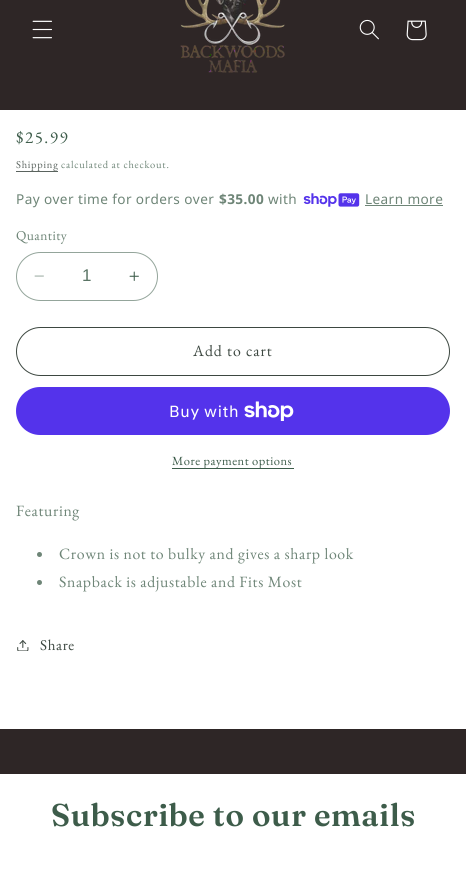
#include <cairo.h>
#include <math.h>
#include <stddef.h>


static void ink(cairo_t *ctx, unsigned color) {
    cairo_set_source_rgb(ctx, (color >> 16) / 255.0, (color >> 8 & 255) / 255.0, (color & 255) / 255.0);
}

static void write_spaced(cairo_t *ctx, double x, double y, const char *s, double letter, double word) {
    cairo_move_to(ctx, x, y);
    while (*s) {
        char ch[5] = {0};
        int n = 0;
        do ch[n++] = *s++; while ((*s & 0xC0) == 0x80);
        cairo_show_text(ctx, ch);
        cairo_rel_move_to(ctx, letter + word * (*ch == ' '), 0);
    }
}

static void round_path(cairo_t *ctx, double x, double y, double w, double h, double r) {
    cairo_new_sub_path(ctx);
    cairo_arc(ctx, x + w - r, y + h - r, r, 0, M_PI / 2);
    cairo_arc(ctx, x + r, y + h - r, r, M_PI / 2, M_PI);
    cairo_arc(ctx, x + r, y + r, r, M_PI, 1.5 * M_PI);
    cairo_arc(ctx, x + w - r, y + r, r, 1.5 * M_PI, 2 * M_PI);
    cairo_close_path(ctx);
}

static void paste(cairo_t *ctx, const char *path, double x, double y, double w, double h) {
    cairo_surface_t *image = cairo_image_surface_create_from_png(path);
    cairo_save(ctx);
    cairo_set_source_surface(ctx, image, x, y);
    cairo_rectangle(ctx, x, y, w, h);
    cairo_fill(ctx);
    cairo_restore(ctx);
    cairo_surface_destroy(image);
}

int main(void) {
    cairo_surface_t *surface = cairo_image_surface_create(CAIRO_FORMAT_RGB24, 466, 896);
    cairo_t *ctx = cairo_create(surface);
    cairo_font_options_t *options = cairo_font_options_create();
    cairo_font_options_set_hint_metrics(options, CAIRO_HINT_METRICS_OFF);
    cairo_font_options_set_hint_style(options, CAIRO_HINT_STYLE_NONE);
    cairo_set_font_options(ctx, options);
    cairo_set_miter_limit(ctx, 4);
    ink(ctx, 0x2E2626);
    cairo_paint(ctx);
    paste(ctx, "media/1.png", 32, 20, 20, 19);
    paste(ctx, "media/2.png", 180, 0, 105, 73);
    paste(ctx, "media/3.png", 359, 19, 20, 21);
    paste(ctx, "media/4.png", 406, 20, 21, 21);
    ink(ctx, 0xFFFFFF);
    cairo_rectangle(ctx, 0, 110, 466, 619);
    cairo_fill(ctx);
    cairo_select_font_face(ctx, "EB Garamond", CAIRO_FONT_SLANT_NORMAL, CAIRO_FONT_WEIGHT_NORMAL);
    cairo_set_font_size(ctx, 17);
    ink(ctx, 0x3D5C4A);
    write_spaced(ctx, 16, 143, "$25.99", 1.5, 0);
    ink(ctx, 0x5A635E);
    cairo_rectangle(ctx, 16, 171, 42, 1);
    cairo_fill(ctx);
    cairo_set_font_size(ctx, 10.5);
    write_spaced(ctx, 16, 168, "Shipping", 0.75, 0);
    ink(ctx, 0x6E8577);
    write_spaced(ctx, 61, 168, "calculated at checkout.", 0.75, 0);
    cairo_select_font_face(ctx, "Noto Sans", CAIRO_FONT_SLANT_NORMAL, CAIRO_FONT_WEIGHT_NORMAL);
    cairo_set_font_size(ctx, 13.6);
    write_spaced(ctx, 16, 204, "Pay over time for orders over", 0.4, 0);
    cairo_select_font_face(ctx, "Noto Sans", CAIRO_FONT_SLANT_NORMAL, CAIRO_FONT_WEIGHT_BOLD);
    write_spaced(ctx, 219, 204, "$35.00", 0.4, 0);
    cairo_select_font_face(ctx, "Noto Sans", CAIRO_FONT_SLANT_NORMAL, CAIRO_FONT_WEIGHT_NORMAL);
    write_spaced(ctx, 268, 204, "with", 0.4, 0);
    paste(ctx, "media/5.png", 303, 193, 57, 14);
    write_spaced(ctx, 365, 204, "Learn more", 0.4, 0);
    cairo_rectangle(ctx, 365, 205, 78, 1);
    cairo_fill(ctx);
    cairo_select_font_face(ctx, "EB Garamond", CAIRO_FONT_SLANT_NORMAL, CAIRO_FONT_WEIGHT_NORMAL);
    write_spaced(ctx, 16, 240, "Quantity", 0.4, 0);
    paste(ctx, "media/6.png", 34, 275, 10, 2);
    paste(ctx, "media/7.png", 129, 271, 10, 10);
    round_path(ctx, 16.5, 252.5, 141, 48, 24);
    ink(ctx, 0x94A59B);
    cairo_set_line_width(ctx, 1);
    cairo_stroke(ctx);
    cairo_select_font_face(ctx, "Liberation Sans", CAIRO_FONT_SLANT_NORMAL, CAIRO_FONT_WEIGHT_NORMAL);
    cairo_set_font_size(ctx, 17);
    ink(ctx, 0x5A7465);
    cairo_move_to(ctx, 82, 281);
    cairo_show_text(ctx, "1");
    round_path(ctx, 16.5, 327.5, 433, 48, 24);
    ink(ctx, 0x3D4841);
    cairo_stroke(ctx);
    cairo_select_font_face(ctx, "EB Garamond", CAIRO_FONT_SLANT_NORMAL, CAIRO_FONT_WEIGHT_NORMAL);
    cairo_set_font_size(ctx, 15.75);
    write_spaced(ctx, 193, 356, "Add to cart", 1, 0);
    ink(ctx, 0x5433EB);
    round_path(ctx, 16, 387, 434, 48, 24);
    cairo_fill(ctx);
    cairo_select_font_face(ctx, "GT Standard", CAIRO_FONT_SLANT_NORMAL, CAIRO_FONT_WEIGHT_NORMAL);
    cairo_set_font_size(ctx, 16);
    ink(ctx, 0xFFFFFF);
    write_spaced(ctx, 169, 417, "Buy with", 0.65, 0);
    paste(ctx, "media/8.png", 244, 401, 50, 20);
    ink(ctx, 0x3D5C4A);
    cairo_rectangle(ctx, 172, 468, 122, 1);
    cairo_fill(ctx);
    cairo_select_font_face(ctx, "EB Garamond", CAIRO_FONT_SLANT_NORMAL, CAIRO_FONT_WEIGHT_NORMAL);
    cairo_set_font_size(ctx, 12.5);
    write_spaced(ctx, 172, 465, "More payment options", 0.5, 0);
    cairo_set_font_size(ctx, 15.75);
    ink(ctx, 0x6E8577);
    write_spaced(ctx, 16, 516, "Featuring", 0.65, 0);
    cairo_new_path(ctx);
    cairo_arc(ctx, 39.5, 554.5, 2.5, 0, 2 * M_PI);
    cairo_fill(ctx);
    write_spaced(ctx, 59, 559, "Crown is not to bulky and gives a sharp look", 0.65, 0);
    cairo_new_path(ctx);
    cairo_arc(ctx, 39.5, 582.5, 2.5, 0, 2 * M_PI);
    cairo_fill(ctx);
    write_spaced(ctx, 59, 587, "Snapback is adjustable and Fits Most", 0.65, 0);
    paste(ctx, "media/9.png", 17, 640, 12, 11);
    cairo_set_font_size(ctx, 15);
    ink(ctx, 0x3D4841);
    write_spaced(ctx, 40, 650, "Share", 0.65, 0);
    ink(ctx, 0xFFFFFF);
    cairo_rectangle(ctx, 0, 774, 466, 122);
    cairo_fill(ctx);
    cairo_select_font_face(ctx, "Fraunces SemiBold", CAIRO_FONT_SLANT_NORMAL, CAIRO_FONT_WEIGHT_NORMAL);
    cairo_set_font_size(ctx, 31.5);
    ink(ctx, 0x3D5C4A);
    write_spaced(ctx, 51, 826, "Subscribe to our emails", 0.65, 0);
    cairo_surface_write_to_png(surface, "image.png");
    cairo_font_options_destroy(options);
    cairo_destroy(ctx);
    cairo_surface_destroy(surface);
    return 0;
}
